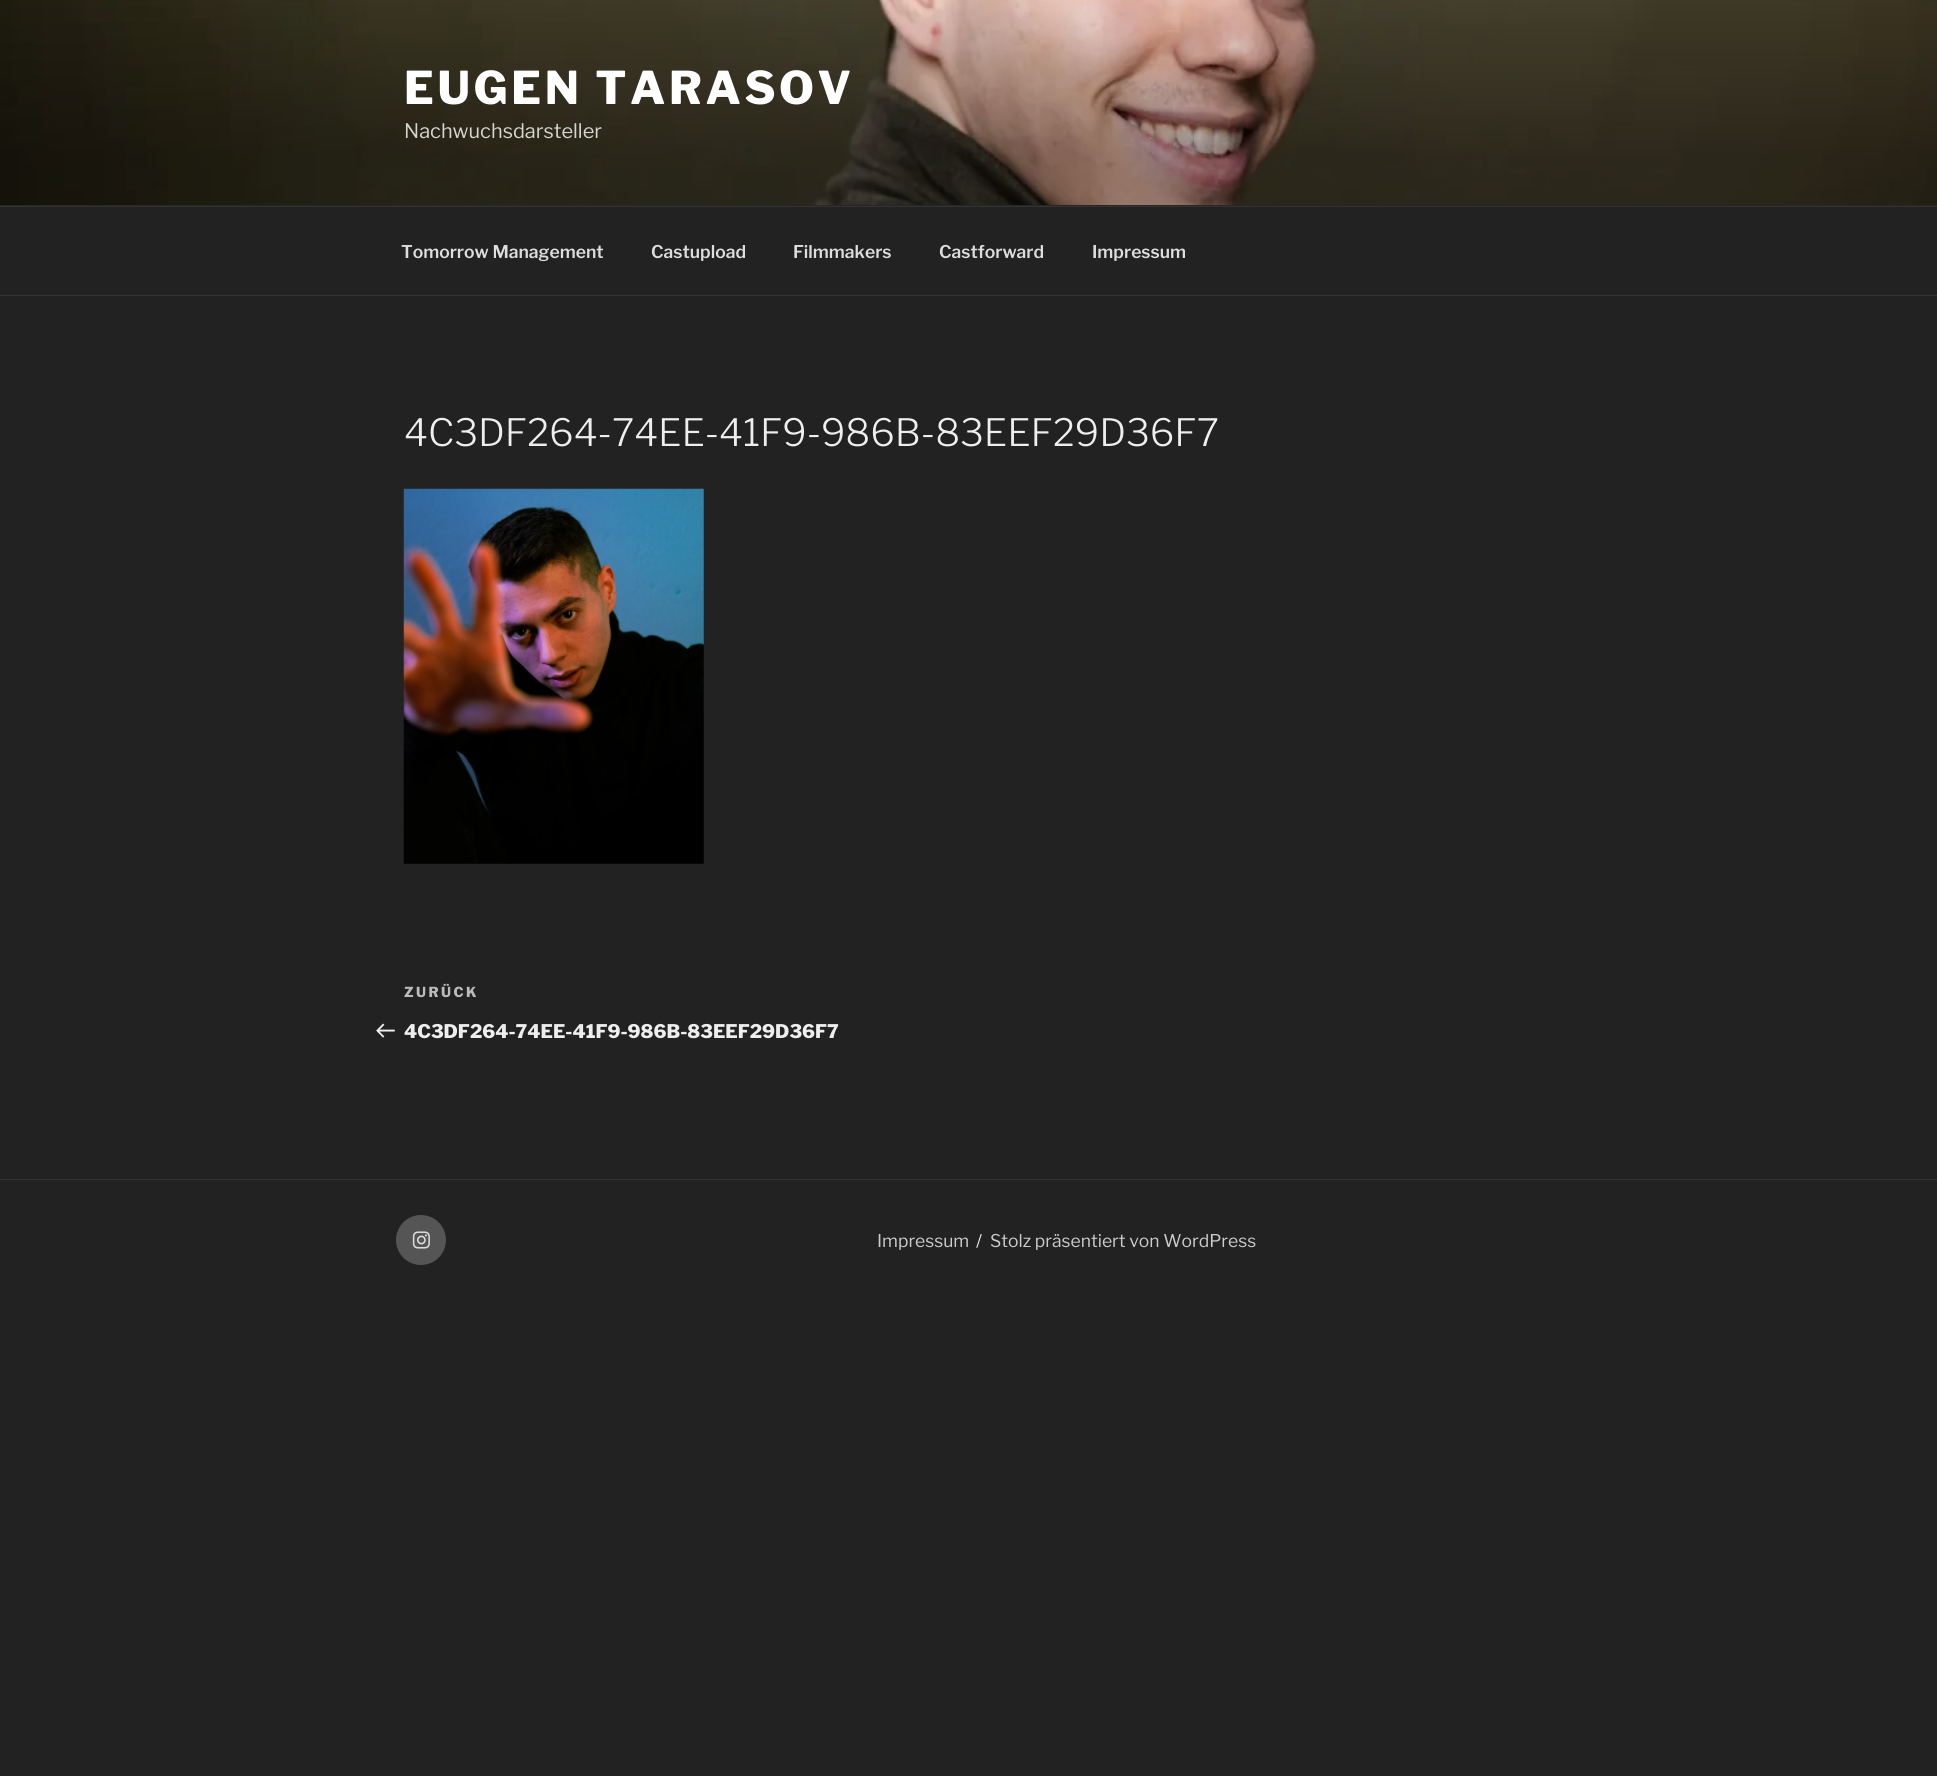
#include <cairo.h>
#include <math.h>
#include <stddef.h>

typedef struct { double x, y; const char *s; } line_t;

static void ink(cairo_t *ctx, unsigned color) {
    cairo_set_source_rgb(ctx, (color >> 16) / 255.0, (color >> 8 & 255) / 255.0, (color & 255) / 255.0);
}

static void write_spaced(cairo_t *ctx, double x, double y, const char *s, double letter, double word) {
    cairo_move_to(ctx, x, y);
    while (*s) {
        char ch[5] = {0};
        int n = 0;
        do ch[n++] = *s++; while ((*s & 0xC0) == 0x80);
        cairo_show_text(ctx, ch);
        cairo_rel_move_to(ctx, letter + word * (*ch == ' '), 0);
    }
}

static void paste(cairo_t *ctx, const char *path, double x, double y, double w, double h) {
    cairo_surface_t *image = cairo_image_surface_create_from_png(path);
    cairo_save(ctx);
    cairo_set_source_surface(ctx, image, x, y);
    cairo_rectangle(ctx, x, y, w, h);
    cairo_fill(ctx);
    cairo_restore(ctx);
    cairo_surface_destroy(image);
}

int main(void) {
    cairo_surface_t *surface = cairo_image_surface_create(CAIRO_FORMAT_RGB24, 1937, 1776);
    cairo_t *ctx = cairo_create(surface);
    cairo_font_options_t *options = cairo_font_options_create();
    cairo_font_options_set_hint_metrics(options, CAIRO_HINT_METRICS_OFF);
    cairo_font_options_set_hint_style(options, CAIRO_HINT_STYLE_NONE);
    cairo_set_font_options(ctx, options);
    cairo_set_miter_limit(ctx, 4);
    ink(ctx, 0x222222);
    cairo_paint(ctx);
    ink(ctx, 0x262626);
    cairo_rectangle(ctx, 0, 205, 1937, 1);
    cairo_fill(ctx);
    paste(ctx, "media/1.png", 0, 0, 1937, 205);
    cairo_select_font_face(ctx, "Libre Franklin ExtraBold", CAIRO_FONT_SLANT_NORMAL, CAIRO_FONT_WEIGHT_NORMAL);
    cairo_set_font_size(ctx, 45);
    ink(ctx, 0xFFFFFF);
    write_spaced(ctx, 404, 104, "EUGEN TARASOV", 3.6, 0);
    cairo_select_font_face(ctx, "Libre Franklin", CAIRO_FONT_SLANT_NORMAL, CAIRO_FONT_WEIGHT_NORMAL);
    cairo_set_font_size(ctx, 20);
    ink(ctx, 0xD5D4D1);
    cairo_move_to(ctx, 404, 138);
    cairo_show_text(ctx, "Nachwuchsdarsteller");
    ink(ctx, 0x333333);
    cairo_rectangle(ctx, 0, 206, 1937, 1);
    cairo_fill(ctx);
    cairo_rectangle(ctx, 0, 295, 1937, 1);
    cairo_fill(ctx);
    cairo_select_font_face(ctx, "Libre Franklin SemiBold", CAIRO_FONT_SLANT_NORMAL, CAIRO_FONT_WEIGHT_NORMAL);
    cairo_set_font_size(ctx, 17.5);
    ink(ctx, 0xDDDDDD);
    {
        static const line_t items[] = {
            {401, 258, "Tomorrow Management"},
            {651, 258, "Castupload"},
            {793, 258, "Filmmakers"},
            {939, 258, "Castforward"},
            {1092, 258, "Impressum"},
        };
        for (size_t i = 0; i < sizeof items / sizeof *items; i++) {
            cairo_move_to(ctx, items[i].x, items[i].y);
            cairo_show_text(ctx, items[i].s);
        }
    }
    cairo_select_font_face(ctx, "Libre Franklin Light", CAIRO_FONT_SLANT_NORMAL, CAIRO_FONT_WEIGHT_NORMAL);
    cairo_set_font_size(ctx, 37.5);
    ink(ctx, 0xEEEEEE);
    cairo_move_to(ctx, 404, 446);
    cairo_show_text(ctx, "4C3DF264-74EE-41F9-986B-83EEF29D36F7");
    paste(ctx, "media/2.png", 403, 488, 301, 376);
    cairo_select_font_face(ctx, "Libre Franklin ExtraBold", CAIRO_FONT_SLANT_NORMAL, CAIRO_FONT_WEIGHT_NORMAL);
    cairo_set_font_size(ctx, 13.75);
    ink(ctx, 0xBBBBBB);
    write_spaced(ctx, 404, 997, "ZURÜCK", 2.5, 0);
    paste(ctx, "media/3.png", 376, 1023, 19, 15);
    cairo_set_font_size(ctx, 18.75);
    ink(ctx, 0xEEEEEE);
    cairo_move_to(ctx, 404, 1038);
    cairo_show_text(ctx, "4C3DF264-74EE-41F9-986B-83EEF29D36F7");
    ink(ctx, 0x333333);
    cairo_rectangle(ctx, 0, 1179, 1937, 1);
    cairo_fill(ctx);
    ink(ctx, 0x555555);
    cairo_arc(ctx, 421, 1240, 25, 0, 2 * M_PI);
    cairo_fill(ctx);
    paste(ctx, "media/4.png", 412, 1231, 18, 18);
    cairo_select_font_face(ctx, "Libre Franklin", CAIRO_FONT_SLANT_NORMAL, CAIRO_FONT_WEIGHT_NORMAL);
    cairo_set_font_size(ctx, 17.5);
    ink(ctx, 0xCCCCCC);
    cairo_move_to(ctx, 877, 1247);
    cairo_show_text(ctx, "Impressum");
    ink(ctx, 0xEEEEEE);
    cairo_move_to(ctx, 976, 1247);
    cairo_show_text(ctx, "/");
    ink(ctx, 0xCCCCCC);
    cairo_move_to(ctx, 990, 1247);
    cairo_show_text(ctx, "Stolz präsentiert von WordPress");
    cairo_surface_write_to_png(surface, "image.png");
    cairo_font_options_destroy(options);
    cairo_destroy(ctx);
    cairo_surface_destroy(surface);
    return 0;
}
